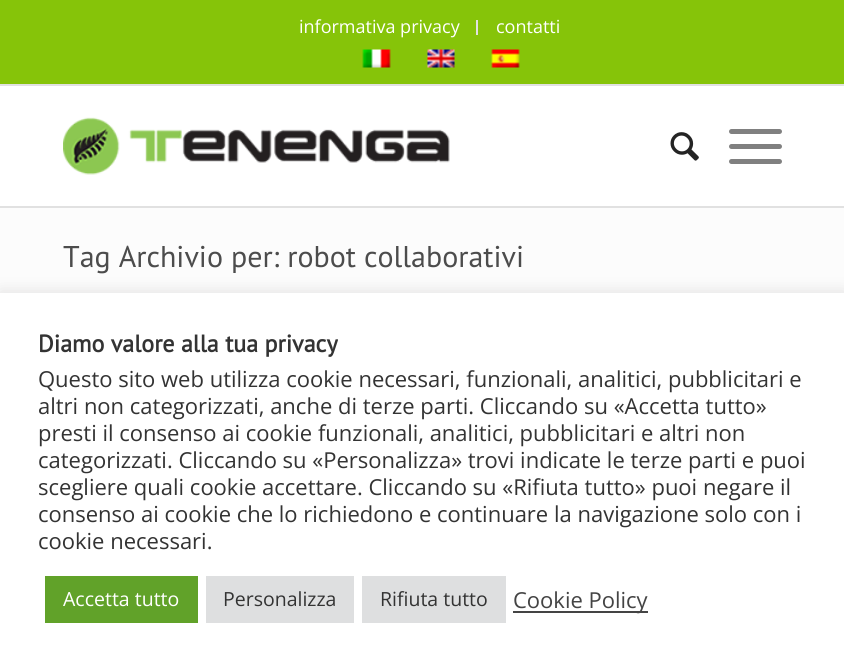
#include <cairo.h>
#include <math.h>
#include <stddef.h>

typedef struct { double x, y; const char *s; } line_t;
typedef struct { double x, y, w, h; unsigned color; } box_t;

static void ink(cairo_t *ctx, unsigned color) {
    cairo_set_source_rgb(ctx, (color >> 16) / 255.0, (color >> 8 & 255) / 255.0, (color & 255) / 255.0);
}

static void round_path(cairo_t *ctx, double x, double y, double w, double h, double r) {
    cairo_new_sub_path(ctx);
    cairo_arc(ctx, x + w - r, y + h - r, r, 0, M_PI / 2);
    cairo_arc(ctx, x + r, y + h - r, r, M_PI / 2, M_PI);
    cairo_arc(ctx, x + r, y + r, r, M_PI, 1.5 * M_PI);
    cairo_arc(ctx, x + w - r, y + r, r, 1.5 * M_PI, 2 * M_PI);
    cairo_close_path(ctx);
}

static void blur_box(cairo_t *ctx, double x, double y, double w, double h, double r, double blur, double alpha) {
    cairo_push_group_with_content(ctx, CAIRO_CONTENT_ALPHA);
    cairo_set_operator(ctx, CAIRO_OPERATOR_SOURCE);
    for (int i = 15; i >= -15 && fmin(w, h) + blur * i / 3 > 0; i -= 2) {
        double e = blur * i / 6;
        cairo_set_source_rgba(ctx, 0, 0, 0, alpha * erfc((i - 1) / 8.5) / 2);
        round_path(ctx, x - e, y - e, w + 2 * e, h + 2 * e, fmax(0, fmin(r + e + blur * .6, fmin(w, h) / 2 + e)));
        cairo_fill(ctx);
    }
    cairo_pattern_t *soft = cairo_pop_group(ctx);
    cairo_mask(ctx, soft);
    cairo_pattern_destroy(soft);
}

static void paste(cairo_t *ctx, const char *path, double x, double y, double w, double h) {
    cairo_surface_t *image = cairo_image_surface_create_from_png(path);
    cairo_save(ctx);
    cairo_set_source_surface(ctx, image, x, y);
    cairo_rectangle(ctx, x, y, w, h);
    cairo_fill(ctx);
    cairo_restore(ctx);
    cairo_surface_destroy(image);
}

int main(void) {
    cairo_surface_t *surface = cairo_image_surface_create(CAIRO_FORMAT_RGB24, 844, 667);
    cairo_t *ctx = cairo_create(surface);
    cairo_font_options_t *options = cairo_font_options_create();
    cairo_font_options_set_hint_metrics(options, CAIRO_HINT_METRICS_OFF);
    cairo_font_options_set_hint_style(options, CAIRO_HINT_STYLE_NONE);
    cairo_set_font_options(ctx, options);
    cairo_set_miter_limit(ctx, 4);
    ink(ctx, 0xFCFCFC);
    cairo_paint(ctx);
    {
        static const box_t items[] = {
            {0, 0, 844, 84, 0x86C409},
            {0, 84, 844, 2, 0xE1E1E1},
            {476, 20, 2, 15, 0xE1E1E1},
        };
        for (size_t i = 0; i < sizeof items / sizeof *items; i++) {
            ink(ctx, items[i].color);
            cairo_rectangle(ctx, items[i].x, items[i].y, items[i].w, items[i].h);
            cairo_fill(ctx);
        }
    }
    cairo_select_font_face(ctx, "Open Sans", CAIRO_FONT_SLANT_NORMAL, CAIRO_FONT_WEIGHT_NORMAL);
    cairo_set_font_size(ctx, 18);
    ink(ctx, 0xFFFFFF);
    cairo_move_to(ctx, 299, 33);
    cairo_show_text(ctx, "informativa privacy");
    cairo_move_to(ctx, 496, 33);
    cairo_show_text(ctx, "contatti");
    paste(ctx, "media/1.png", 362, 49, 29, 19);
    paste(ctx, "media/2.png", 427, 49, 28, 19);
    paste(ctx, "media/3.png", 491, 49, 29, 19);
    cairo_rectangle(ctx, 0, 86, 844, 120);
    cairo_fill(ctx);
    ink(ctx, 0xE1E1E1);
    cairo_rectangle(ctx, 0, 206, 844, 2);
    cairo_fill(ctx);
    paste(ctx, "media/4.png", 63, 117, 387, 58);
    paste(ctx, "media/5.png", 670, 132, 29, 29);
    ink(ctx, 0x808080);
    round_path(ctx, 729, 144, 53, 5, 2.5);
    cairo_fill(ctx);
    round_path(ctx, 729, 129, 53, 5, 2.5);
    cairo_fill(ctx);
    round_path(ctx, 729, 159, 53, 5, 2.5);
    cairo_fill(ctx);
    cairo_select_font_face(ctx, "PT Sans", CAIRO_FONT_SLANT_NORMAL, CAIRO_FONT_WEIGHT_NORMAL);
    cairo_set_font_size(ctx, 30);
    ink(ctx, 0x4C4C4C);
    cairo_move_to(ctx, 63, 267);
    cairo_show_text(ctx, "Tag Archivio per: robot collaborativi");
    ink(ctx, 0xACABAB);
    blur_box(ctx, 0, 291, 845, 375, 0, 7.5, 0.3);
    ink(ctx, 0xFFFFFF);
    cairo_rectangle(ctx, 0, 293, 844, 374);
    cairo_fill(ctx);
    cairo_select_font_face(ctx, "PT Sans", CAIRO_FONT_SLANT_NORMAL, CAIRO_FONT_WEIGHT_BOLD);
    cairo_set_font_size(ctx, 24);
    ink(ctx, 0x333333);
    cairo_move_to(ctx, 38, 352);
    cairo_show_text(ctx, "Diamo valore alla tua privacy");
    cairo_select_font_face(ctx, "Open Sans", CAIRO_FONT_SLANT_NORMAL, CAIRO_FONT_WEIGHT_NORMAL);
    cairo_set_font_size(ctx, 22);
    {
        static const line_t items[] = {
            {38, 387, "Questo sito web utilizza cookie necessari, funzionali, analitici, pubblicitari e"},
            {38, 414, "altri non categorizzati, anche di terze parti. Cliccando su «Accetta tutto»"},
            {38, 441, "presti il consenso ai cookie funzionali, analitici, pubblicitari e altri non"},
            {38, 468, "categorizzati. Cliccando su «Personalizza» trovi indicate le terze parti e puoi"},
            {38, 495, "scegliere quali cookie accettare. Cliccando su «Rifiuta tutto» puoi negare il"},
            {38, 522, "consenso ai cookie che lo richiedono e continuare la navigazione solo con i"},
            {38, 549, "cookie necessari."},
        };
        for (size_t i = 0; i < sizeof items / sizeof *items; i++) {
            cairo_move_to(ctx, items[i].x, items[i].y);
            cairo_show_text(ctx, items[i].s);
        }
    }
    ink(ctx, 0x61A229);
    cairo_rectangle(ctx, 45, 576, 153, 47);
    cairo_fill(ctx);
    cairo_set_font_size(ctx, 19.5);
    ink(ctx, 0xFFFFFF);
    cairo_move_to(ctx, 63, 606);
    cairo_show_text(ctx, "Accetta tutto");
    ink(ctx, 0xDEDFE0);
    cairo_rectangle(ctx, 206, 576, 148, 47);
    cairo_fill(ctx);
    ink(ctx, 0x333333);
    cairo_move_to(ctx, 223, 606);
    cairo_show_text(ctx, "Personalizza");
    ink(ctx, 0xDEDFE0);
    cairo_rectangle(ctx, 362, 576, 144, 47);
    cairo_fill(ctx);
    ink(ctx, 0x333333);
    cairo_move_to(ctx, 380, 606);
    cairo_show_text(ctx, "Rifiuta tutto");
    ink(ctx, 0x444444);
    cairo_rectangle(ctx, 513, 611, 135, 2);
    cairo_fill(ctx);
    cairo_set_font_size(ctx, 22);
    cairo_move_to(ctx, 513, 608);
    cairo_show_text(ctx, "Cookie Policy");
    cairo_surface_write_to_png(surface, "image.png");
    cairo_font_options_destroy(options);
    cairo_destroy(ctx);
    cairo_surface_destroy(surface);
    return 0;
}
